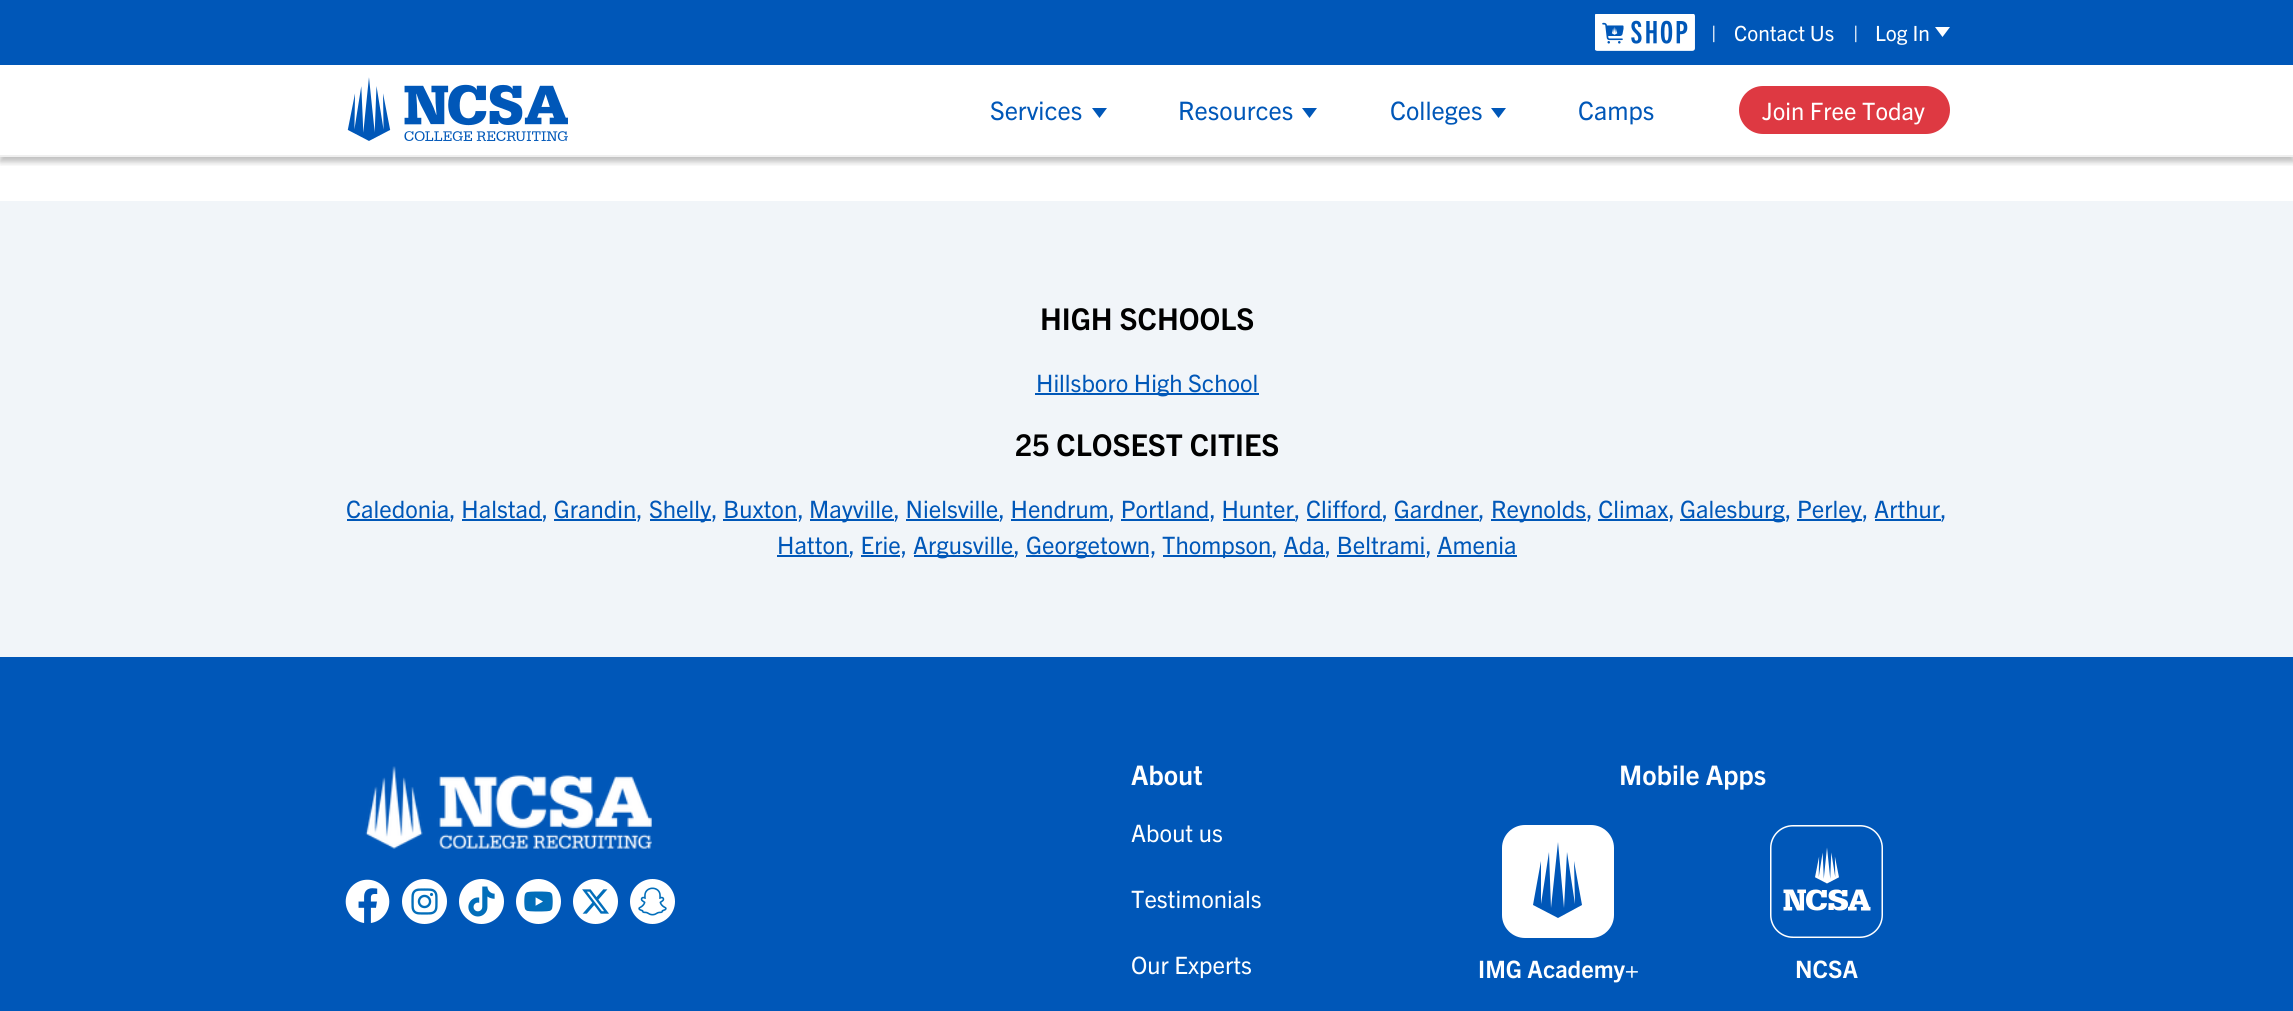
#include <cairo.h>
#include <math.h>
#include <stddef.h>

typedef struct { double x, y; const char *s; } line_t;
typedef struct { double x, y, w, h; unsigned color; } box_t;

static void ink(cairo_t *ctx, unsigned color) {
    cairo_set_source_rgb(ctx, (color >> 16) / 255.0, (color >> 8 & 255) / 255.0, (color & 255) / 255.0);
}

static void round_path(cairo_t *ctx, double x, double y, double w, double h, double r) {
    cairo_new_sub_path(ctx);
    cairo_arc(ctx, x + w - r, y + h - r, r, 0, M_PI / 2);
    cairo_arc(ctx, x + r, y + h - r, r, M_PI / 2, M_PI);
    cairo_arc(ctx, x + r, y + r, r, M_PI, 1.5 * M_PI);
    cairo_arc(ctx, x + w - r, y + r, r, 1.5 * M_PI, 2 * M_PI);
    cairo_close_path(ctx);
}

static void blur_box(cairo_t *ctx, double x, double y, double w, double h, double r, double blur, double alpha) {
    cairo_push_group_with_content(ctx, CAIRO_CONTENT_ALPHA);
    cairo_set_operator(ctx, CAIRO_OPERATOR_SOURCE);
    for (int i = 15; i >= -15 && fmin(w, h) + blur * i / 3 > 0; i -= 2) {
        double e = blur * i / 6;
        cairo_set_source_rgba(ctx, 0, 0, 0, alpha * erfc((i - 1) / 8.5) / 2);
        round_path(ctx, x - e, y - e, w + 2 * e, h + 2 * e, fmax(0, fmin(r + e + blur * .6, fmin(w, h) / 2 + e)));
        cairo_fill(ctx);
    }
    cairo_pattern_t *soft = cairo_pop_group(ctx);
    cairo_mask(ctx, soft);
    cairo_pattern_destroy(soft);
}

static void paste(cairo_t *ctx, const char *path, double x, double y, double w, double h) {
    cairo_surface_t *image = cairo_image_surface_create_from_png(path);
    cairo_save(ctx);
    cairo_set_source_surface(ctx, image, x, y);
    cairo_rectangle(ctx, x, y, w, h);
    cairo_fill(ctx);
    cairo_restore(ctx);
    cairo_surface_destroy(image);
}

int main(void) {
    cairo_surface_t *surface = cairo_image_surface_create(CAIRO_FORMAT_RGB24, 2293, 1011);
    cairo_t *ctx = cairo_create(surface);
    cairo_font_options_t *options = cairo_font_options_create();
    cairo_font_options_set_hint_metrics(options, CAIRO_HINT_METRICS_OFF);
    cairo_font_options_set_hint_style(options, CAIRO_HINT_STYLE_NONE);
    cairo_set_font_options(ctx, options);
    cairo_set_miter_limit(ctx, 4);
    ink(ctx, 0xFFFFFF);
    cairo_paint(ctx);
    cairo_save(ctx);
    cairo_rectangle(ctx, 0, 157, 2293, 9);
    cairo_clip(ctx);
    ink(ctx, 0x000000);
    blur_box(ctx, 0, 6, 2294, 156, 0, 3, 0.25);
    cairo_restore(ctx);
    ink(ctx, 0xEFEFEF);
    cairo_rectangle(ctx, 0, 155, 2293, 2);
    cairo_fill(ctx);
    ink(ctx, 0x0057B8);
    cairo_rectangle(ctx, 0, 0, 2293, 65);
    cairo_fill(ctx);
    paste(ctx, "media/1.png", 1595, 14, 100, 37);
    cairo_select_font_face(ctx, "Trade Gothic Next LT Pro", CAIRO_FONT_SLANT_NORMAL, CAIRO_FONT_WEIGHT_NORMAL);
    cairo_set_font_size(ctx, 21);
    ink(ctx, 0xFFFFFF);
    {
        static const line_t items[] = {
            {1711, 41, "|"},
            {1734, 41, "Contact Us"},
            {1853, 41, "|"},
            {1875, 41, "Log In"},
        };
        for (size_t i = 0; i < sizeof items / sizeof *items; i++) {
            cairo_move_to(ctx, items[i].x, items[i].y);
            cairo_show_text(ctx, items[i].s);
        }
    }
    cairo_new_path(ctx);
    cairo_move_to(ctx, 1942.5, 37);
    cairo_line_to(ctx, 1935, 27);
    cairo_line_to(ctx, 1950, 27);
    cairo_close_path(ctx);
    cairo_fill(ctx);
    paste(ctx, "media/2.png", 347, 77, 221, 65);
    cairo_set_font_size(ctx, 25.5);
    ink(ctx, 0x0057B8);
    cairo_move_to(ctx, 990, 120);
    cairo_show_text(ctx, "Services");
    cairo_new_path(ctx);
    cairo_move_to(ctx, 1099.5, 118);
    cairo_line_to(ctx, 1092, 108);
    cairo_line_to(ctx, 1107, 108);
    cairo_close_path(ctx);
    cairo_fill(ctx);
    cairo_move_to(ctx, 1178, 120);
    cairo_show_text(ctx, "Resources");
    cairo_new_path(ctx);
    cairo_move_to(ctx, 1309.5, 118);
    cairo_line_to(ctx, 1302, 108);
    cairo_line_to(ctx, 1317, 108);
    cairo_close_path(ctx);
    cairo_fill(ctx);
    cairo_move_to(ctx, 1390, 120);
    cairo_show_text(ctx, "Colleges");
    cairo_new_path(ctx);
    cairo_move_to(ctx, 1498.5, 118);
    cairo_line_to(ctx, 1491, 108);
    cairo_line_to(ctx, 1506, 108);
    cairo_close_path(ctx);
    cairo_fill(ctx);
    cairo_move_to(ctx, 1578, 120);
    cairo_show_text(ctx, "Camps");
    ink(ctx, 0xDE3942);
    round_path(ctx, 1739, 86, 211, 48, 24);
    cairo_fill(ctx);
    cairo_set_font_size(ctx, 24);
    ink(ctx, 0xFFFFFF);
    cairo_move_to(ctx, 1762, 120);
    cairo_show_text(ctx, "Join Free Today");
    ink(ctx, 0xF1F5F9);
    cairo_rectangle(ctx, 0, 201, 2293, 456);
    cairo_fill(ctx);
    cairo_select_font_face(ctx, "Trade Gothic Next LT Pro", CAIRO_FONT_SLANT_NORMAL, CAIRO_FONT_WEIGHT_BOLD);
    cairo_set_font_size(ctx, 30);
    ink(ctx, 0x000000);
    cairo_move_to(ctx, 1040, 330);
    cairo_show_text(ctx, "HIGH SCHOOLS");
    ink(ctx, 0x0057B8);
    cairo_rectangle(ctx, 1035, 393, 224, 2);
    cairo_fill(ctx);
    cairo_select_font_face(ctx, "Trade Gothic Next LT Pro", CAIRO_FONT_SLANT_NORMAL, CAIRO_FONT_WEIGHT_NORMAL);
    cairo_set_font_size(ctx, 24);
    cairo_move_to(ctx, 1036, 392);
    cairo_show_text(ctx, "Hillsboro High School");
    cairo_select_font_face(ctx, "Trade Gothic Next LT Pro", CAIRO_FONT_SLANT_NORMAL, CAIRO_FONT_WEIGHT_BOLD);
    cairo_set_font_size(ctx, 30);
    ink(ctx, 0x000000);
    cairo_move_to(ctx, 1015, 456);
    cairo_show_text(ctx, "25 CLOSEST CITIES");
    ink(ctx, 0x0057B8);
    cairo_rectangle(ctx, 347, 519, 103, 2);
    cairo_fill(ctx);
    cairo_select_font_face(ctx, "Trade Gothic Next LT Pro", CAIRO_FONT_SLANT_NORMAL, CAIRO_FONT_WEIGHT_NORMAL);
    cairo_set_font_size(ctx, 24);
    cairo_move_to(ctx, 346, 518);
    cairo_show_text(ctx, "Caledonia, Halstad, Grandin,");
    cairo_rectangle(ctx, 650, 519, 61, 2);
    cairo_fill(ctx);
    cairo_move_to(ctx, 649, 518);
    cairo_show_text(ctx, "Shelly, Buxton,");
    cairo_rectangle(ctx, 810, 519, 84, 2);
    cairo_fill(ctx);
    cairo_move_to(ctx, 809, 518);
    cairo_show_text(ctx, "Mayville, Nielsville, Hendrum, Portland, Hunter, Clifford, Gardner,");
    cairo_rectangle(ctx, 1491, 519, 95, 2);
    cairo_fill(ctx);
    cairo_move_to(ctx, 1491, 518);
    cairo_show_text(ctx, "Reynolds, Climax,");
    cairo_rectangle(ctx, 1680, 519, 105, 2);
    cairo_fill(ctx);
    cairo_move_to(ctx, 1680, 518);
    cairo_show_text(ctx, "Galesburg,");
    cairo_rectangle(ctx, 1797, 519, 65, 2);
    cairo_fill(ctx);
    cairo_move_to(ctx, 1797, 518);
    cairo_show_text(ctx, "Perley, Arthur,");
    {
        static const box_t items[] = {
            {462, 519, 80, 2, 0x0057B8},
            {554, 519, 82, 2, 0x0057B8},
            {723, 519, 74, 2, 0x0057B8},
            {906, 519, 93, 2, 0x0057B8},
            {1011, 519, 98, 2, 0x0057B8},
            {1121, 519, 88, 2, 0x0057B8},
            {1223, 519, 72, 2, 0x0057B8},
            {1307, 519, 75, 2, 0x0057B8},
            {1395, 519, 84, 2, 0x0057B8},
            {1598, 519, 70, 2, 0x0057B8},
            {1875, 519, 66, 2, 0x0057B8},
            {777, 555, 72, 2, 0x0057B8},
        };
        for (size_t i = 0; i < sizeof items / sizeof *items; i++) {
            ink(ctx, items[i].color);
            cairo_rectangle(ctx, items[i].x, items[i].y, items[i].w, items[i].h);
            cairo_fill(ctx);
        }
    }
    cairo_move_to(ctx, 777, 554);
    cairo_show_text(ctx, "Hatton, Erie,");
    cairo_rectangle(ctx, 914, 555, 100, 2);
    cairo_fill(ctx);
    cairo_move_to(ctx, 913, 554);
    cairo_show_text(ctx, "Argusville,");
    cairo_rectangle(ctx, 1026, 555, 123, 2);
    cairo_fill(ctx);
    cairo_move_to(ctx, 1026, 554);
    cairo_show_text(ctx, "Georgetown,");
    cairo_rectangle(ctx, 1163, 555, 109, 2);
    cairo_fill(ctx);
    cairo_move_to(ctx, 1162, 554);
    cairo_show_text(ctx, "Thompson, Ada, Beltrami, Amenia");
    {
        static const box_t items[] = {
            {861, 555, 39, 2, 0x0057B8},
            {1284, 555, 41, 2, 0x0057B8},
            {1337, 555, 88, 2, 0x0057B8},
            {1437, 555, 80, 2, 0x0057B8},
            {0, 657, 2293, 354, 0x0057B8},
        };
        for (size_t i = 0; i < sizeof items / sizeof *items; i++) {
            ink(ctx, items[i].color);
            cairo_rectangle(ctx, items[i].x, items[i].y, items[i].w, items[i].h);
            cairo_fill(ctx);
        }
    }
    paste(ctx, "media/3.png", 365, 766, 287, 83);
    paste(ctx, "media/4.png", 345, 879, 45, 44);
    ink(ctx, 0xFFFFFF);
    cairo_arc(ctx, 424.5, 901.5, 22.5, 0, 2 * M_PI);
    cairo_fill(ctx);
    paste(ctx, "media/5.png", 411, 888, 27, 27);
    cairo_arc(ctx, 481.5, 901.5, 22.5, 0, 2 * M_PI);
    cairo_fill(ctx);
    paste(ctx, "media/6.png", 468, 886, 27, 31);
    cairo_arc(ctx, 538.5, 901.5, 22.5, 0, 2 * M_PI);
    cairo_fill(ctx);
    paste(ctx, "media/7.png", 524, 891, 29, 21);
    cairo_arc(ctx, 595.5, 901.5, 22.5, 0, 2 * M_PI);
    cairo_fill(ctx);
    paste(ctx, "media/8.png", 582, 889, 27, 25);
    cairo_arc(ctx, 652.5, 901.5, 22.5, 0, 2 * M_PI);
    cairo_fill(ctx);
    paste(ctx, "media/9.png", 638, 887, 29, 29);
    cairo_select_font_face(ctx, "Trade Gothic Next LT Pro", CAIRO_FONT_SLANT_NORMAL, CAIRO_FONT_WEIGHT_BOLD);
    cairo_set_font_size(ctx, 27);
    cairo_move_to(ctx, 1131, 785);
    cairo_show_text(ctx, "About");
    cairo_select_font_face(ctx, "Trade Gothic Next LT Pro", CAIRO_FONT_SLANT_NORMAL, CAIRO_FONT_WEIGHT_NORMAL);
    cairo_set_font_size(ctx, 24);
    {
        static const line_t items[] = {
            {1131, 842, "About us"},
            {1131, 908, "Testimonials"},
            {1131, 974, "Our Experts"},
        };
        for (size_t i = 0; i < sizeof items / sizeof *items; i++) {
            cairo_move_to(ctx, items[i].x, items[i].y);
            cairo_show_text(ctx, items[i].s);
        }
    }
    cairo_select_font_face(ctx, "Trade Gothic Next LT Pro", CAIRO_FONT_SLANT_NORMAL, CAIRO_FONT_WEIGHT_BOLD);
    cairo_set_font_size(ctx, 27);
    cairo_move_to(ctx, 1619, 785);
    cairo_show_text(ctx, "Mobile Apps");
    round_path(ctx, 1502, 825, 112, 113, 23);
    cairo_fill(ctx);
    ink(ctx, 0x0057B8);
    cairo_new_path(ctx);
    cairo_move_to(ctx, 1582, 905);
    cairo_line_to(ctx, 1574, 861);
    cairo_line_to(ctx, 1575, 904);
    cairo_line_to(ctx, 1567, 852);
    cairo_line_to(ctx, 1564, 908);
    cairo_line_to(ctx, 1558, 842);
    cairo_line_to(ctx, 1551, 908);
    cairo_line_to(ctx, 1549, 852);
    cairo_line_to(ctx, 1541, 904);
    cairo_line_to(ctx, 1541, 861);
    cairo_line_to(ctx, 1533, 905);
    cairo_line_to(ctx, 1558, 918);
    cairo_close_path(ctx);
    cairo_fill(ctx);
    cairo_set_font_size(ctx, 24);
    ink(ctx, 0xFFFFFF);
    cairo_move_to(ctx, 1478, 978);
    cairo_show_text(ctx, "IMG Academy+");
    paste(ctx, "media/10.png", 1770, 825, 113, 113);
    cairo_move_to(ctx, 1795, 978);
    cairo_show_text(ctx, "NCSA");
    cairo_surface_write_to_png(surface, "image.png");
    cairo_font_options_destroy(options);
    cairo_destroy(ctx);
    cairo_surface_destroy(surface);
    return 0;
}
